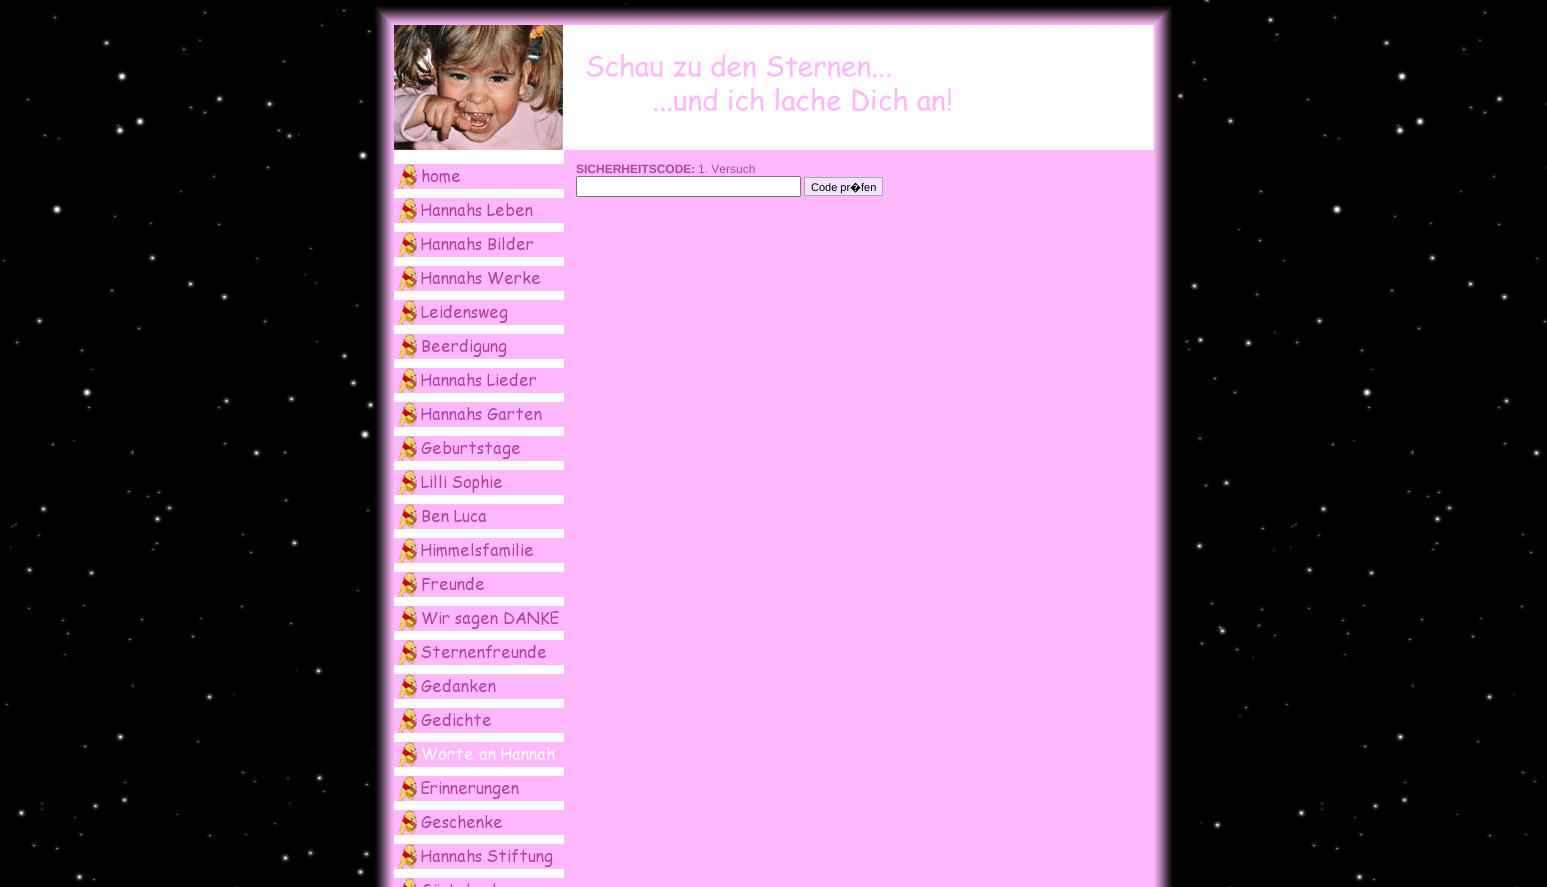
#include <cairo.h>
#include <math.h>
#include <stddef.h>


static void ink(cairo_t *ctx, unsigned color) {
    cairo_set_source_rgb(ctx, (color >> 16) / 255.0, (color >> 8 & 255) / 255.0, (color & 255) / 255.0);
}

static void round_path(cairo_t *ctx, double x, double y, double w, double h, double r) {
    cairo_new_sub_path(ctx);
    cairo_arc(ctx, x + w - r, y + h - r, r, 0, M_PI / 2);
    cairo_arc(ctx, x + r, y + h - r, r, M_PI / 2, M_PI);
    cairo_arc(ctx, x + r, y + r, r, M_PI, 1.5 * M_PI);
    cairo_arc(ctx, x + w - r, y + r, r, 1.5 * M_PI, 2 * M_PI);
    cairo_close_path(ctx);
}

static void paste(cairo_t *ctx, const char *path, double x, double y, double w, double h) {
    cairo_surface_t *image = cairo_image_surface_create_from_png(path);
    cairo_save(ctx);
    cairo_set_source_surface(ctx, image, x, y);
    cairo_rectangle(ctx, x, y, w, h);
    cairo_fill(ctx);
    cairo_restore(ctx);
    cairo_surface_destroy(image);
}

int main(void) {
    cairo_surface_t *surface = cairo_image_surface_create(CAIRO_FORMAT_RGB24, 1547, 887);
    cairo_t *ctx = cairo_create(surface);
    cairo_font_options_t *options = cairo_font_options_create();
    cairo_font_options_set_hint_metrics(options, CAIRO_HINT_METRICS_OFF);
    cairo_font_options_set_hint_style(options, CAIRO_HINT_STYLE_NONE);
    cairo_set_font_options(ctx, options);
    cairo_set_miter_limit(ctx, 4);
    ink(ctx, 0xFFFFFF);
    cairo_paint(ctx);
    paste(ctx, "media/1.png", 0, 0, 1547, 887);
    paste(ctx, "media/2.png", 374, 6, 20, 19);
    paste(ctx, "media/3.png", 394, 5, 760, 20);
    paste(ctx, "media/4.png", 1154, 5, 19, 20);
    paste(ctx, "media/5.png", 374, 25, 20, 862);
    ink(ctx, 0xFFFFFF);
    cairo_rectangle(ctx, 394, 25, 760, 853);
    cairo_fill(ctx);
    paste(ctx, "media/6.png", 394, 25, 557, 125);
    paste(ctx, "media/7.png", 394, 164, 170, 25);
    paste(ctx, "media/8.png", 394, 198, 170, 25);
    paste(ctx, "media/9.png", 394, 232, 170, 25);
    paste(ctx, "media/10.png", 394, 266, 170, 25);
    paste(ctx, "media/11.png", 394, 300, 170, 25);
    paste(ctx, "media/12.png", 394, 334, 170, 25);
    paste(ctx, "media/13.png", 394, 368, 170, 25);
    paste(ctx, "media/14.png", 394, 402, 170, 25);
    paste(ctx, "media/15.png", 394, 436, 170, 25);
    paste(ctx, "media/16.png", 394, 470, 170, 25);
    paste(ctx, "media/17.png", 394, 504, 170, 25);
    paste(ctx, "media/18.png", 394, 538, 170, 25);
    paste(ctx, "media/19.png", 394, 572, 170, 25);
    paste(ctx, "media/20.png", 394, 606, 170, 25);
    paste(ctx, "media/21.png", 394, 640, 170, 25);
    paste(ctx, "media/22.png", 394, 674, 170, 25);
    paste(ctx, "media/23.png", 394, 708, 170, 25);
    paste(ctx, "media/24.png", 394, 742, 170, 25);
    paste(ctx, "media/25.png", 394, 776, 170, 25);
    paste(ctx, "media/26.png", 394, 810, 170, 25);
    paste(ctx, "media/27.png", 394, 844, 170, 25);
    paste(ctx, "media/28.png", 394, 878, 170, 9);
    ink(ctx, 0xFFB8FB);
    cairo_rectangle(ctx, 564, 150, 590, 737);
    cairo_fill(ctx);
    cairo_select_font_face(ctx, "Liberation Sans", CAIRO_FONT_SLANT_NORMAL, CAIRO_FONT_WEIGHT_BOLD);
    cairo_set_font_size(ctx, 12);
    ink(ctx, 0xB042A1);
    cairo_move_to(ctx, 576, 173);
    cairo_show_text(ctx, "SICHERHEITSCODE:");
    cairo_select_font_face(ctx, "Liberation Sans", CAIRO_FONT_SLANT_NORMAL, CAIRO_FONT_WEIGHT_NORMAL);
    cairo_move_to(ctx, 698, 173);
    cairo_show_text(ctx, "1. Versuch");
    ink(ctx, 0xFFFFFF);
    round_path(ctx, 576.5, 176.5, 224, 20, 1.5);
    cairo_fill_preserve(ctx);
    ink(ctx, 0x767676);
    cairo_set_line_width(ctx, 1);
    cairo_stroke(ctx);
    ink(ctx, 0xF3E3FF);
    cairo_rectangle(ctx, 804.5, 177.5, 78, 18);
    cairo_fill_preserve(ctx);
    ink(ctx, 0xA9A9A9);
    cairo_stroke(ctx);
    cairo_set_font_size(ctx, 11);
    ink(ctx, 0x000000);
    cairo_move_to(ctx, 811, 191);
    cairo_show_text(ctx, "Code pr");
    cairo_select_font_face(ctx, "Noto Sans", CAIRO_FONT_SLANT_NORMAL, CAIRO_FONT_WEIGHT_NORMAL);
    cairo_move_to(ctx, 850, 191);
    cairo_show_text(ctx, "�");
    cairo_select_font_face(ctx, "Liberation Sans", CAIRO_FONT_SLANT_NORMAL, CAIRO_FONT_WEIGHT_NORMAL);
    cairo_move_to(ctx, 861, 191);
    cairo_show_text(ctx, "fen");
    paste(ctx, "media/29.png", 1154, 25, 19, 862);
    cairo_surface_write_to_png(surface, "image.png");
    cairo_font_options_destroy(options);
    cairo_destroy(ctx);
    cairo_surface_destroy(surface);
    return 0;
}
